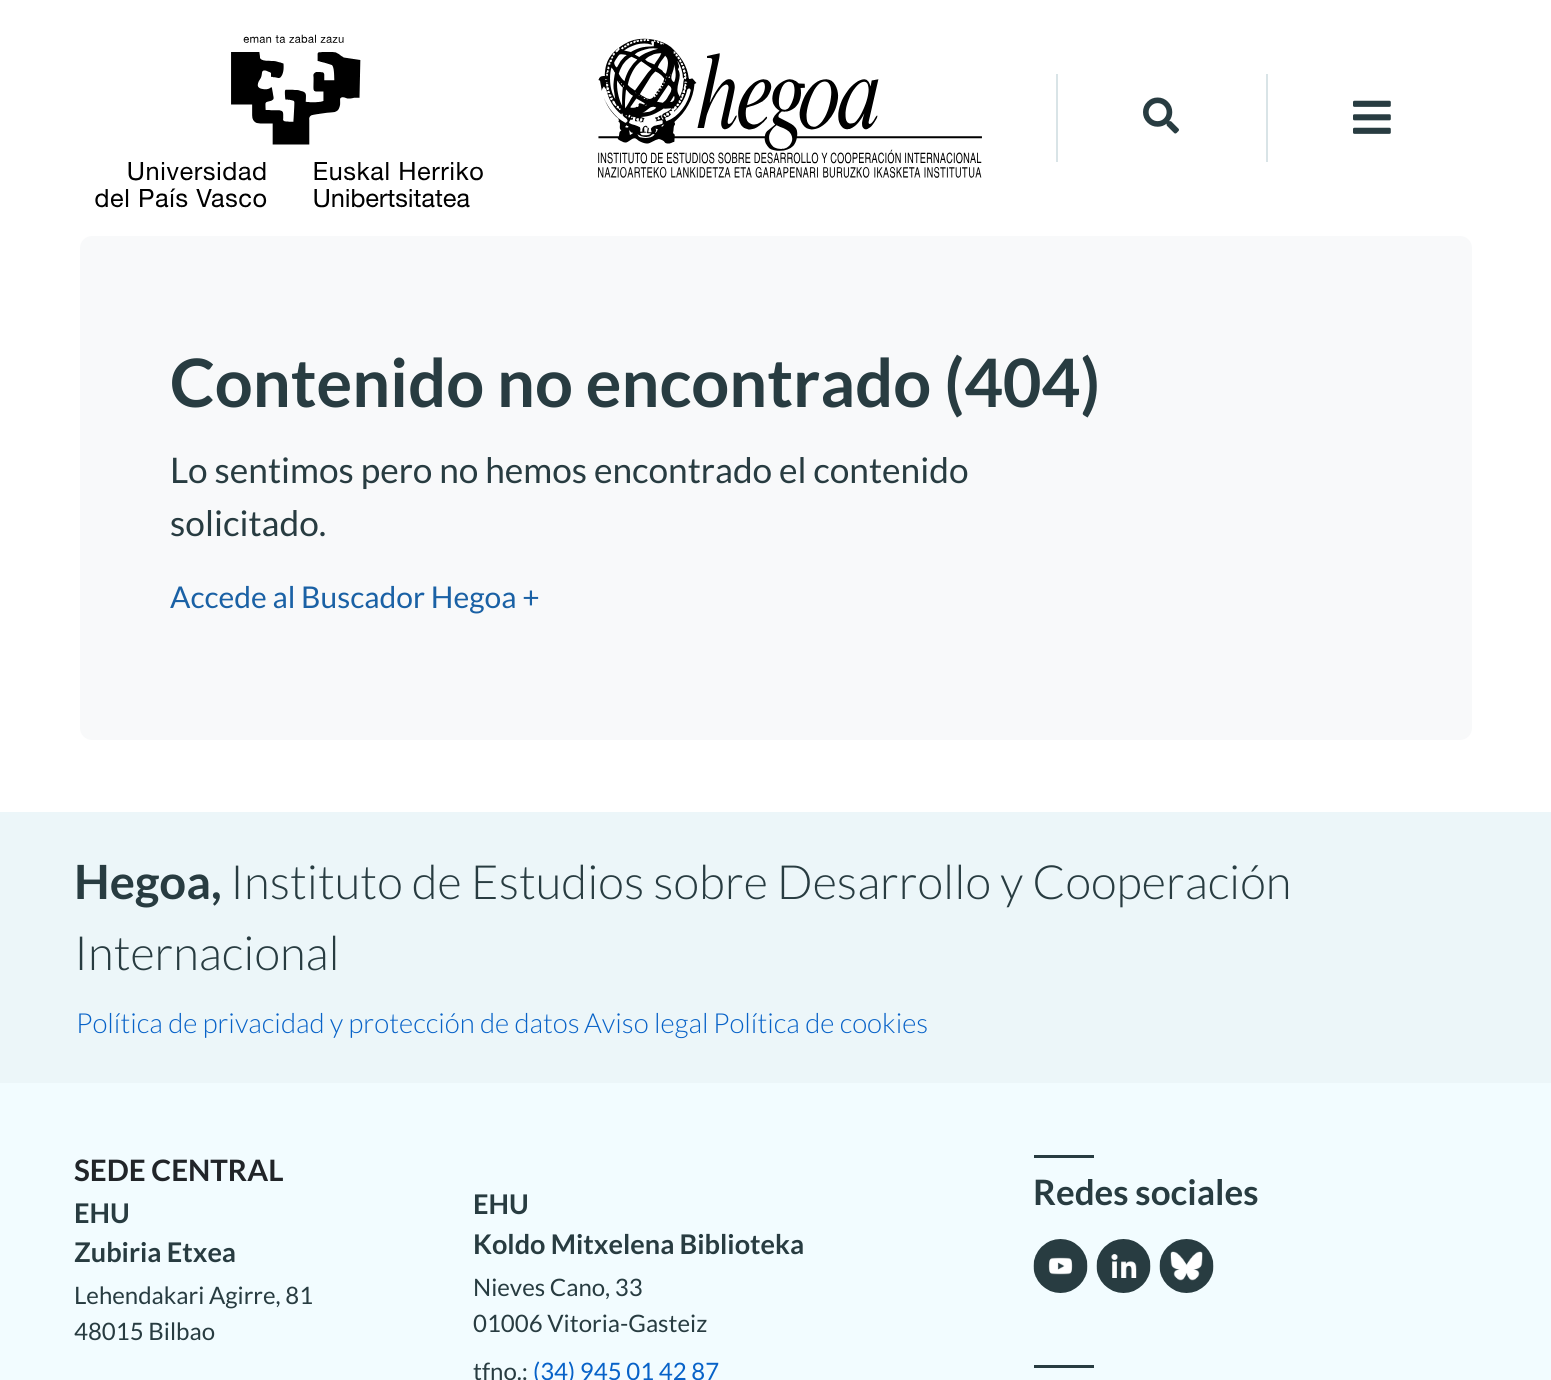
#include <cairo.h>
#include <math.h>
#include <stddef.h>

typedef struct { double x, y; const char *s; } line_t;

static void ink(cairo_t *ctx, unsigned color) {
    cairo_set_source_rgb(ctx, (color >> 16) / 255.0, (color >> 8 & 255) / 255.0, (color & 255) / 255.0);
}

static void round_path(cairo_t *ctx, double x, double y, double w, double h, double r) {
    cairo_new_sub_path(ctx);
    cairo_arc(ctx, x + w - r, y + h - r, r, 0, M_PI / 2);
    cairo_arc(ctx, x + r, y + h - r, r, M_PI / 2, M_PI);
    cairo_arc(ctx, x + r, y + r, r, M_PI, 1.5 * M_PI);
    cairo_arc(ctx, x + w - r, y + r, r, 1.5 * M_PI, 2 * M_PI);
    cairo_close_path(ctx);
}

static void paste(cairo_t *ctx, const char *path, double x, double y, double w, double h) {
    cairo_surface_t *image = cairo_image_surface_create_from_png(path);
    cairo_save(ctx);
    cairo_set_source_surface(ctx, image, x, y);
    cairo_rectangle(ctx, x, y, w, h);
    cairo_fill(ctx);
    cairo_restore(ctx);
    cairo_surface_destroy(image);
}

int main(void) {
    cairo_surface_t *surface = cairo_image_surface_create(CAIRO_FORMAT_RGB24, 1551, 1380);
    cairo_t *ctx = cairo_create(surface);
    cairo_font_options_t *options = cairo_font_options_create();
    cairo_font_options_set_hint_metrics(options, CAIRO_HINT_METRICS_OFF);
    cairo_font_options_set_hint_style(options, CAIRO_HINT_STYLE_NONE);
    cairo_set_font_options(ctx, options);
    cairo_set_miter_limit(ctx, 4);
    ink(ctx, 0xFFFFFF);
    cairo_paint(ctx);
    paste(ctx, "media/1.png", 95, 34, 887, 174);
    ink(ctx, 0xD9E4E7);
    cairo_rectangle(ctx, 1266, 74, 2, 88);
    cairo_fill(ctx);
    cairo_rectangle(ctx, 1056, 74, 2, 88);
    cairo_fill(ctx);
    paste(ctx, "media/2.png", 1143, 97, 36, 37);
    paste(ctx, "media/3.png", 1353, 100, 38, 34);
    ink(ctx, 0xF8F9FA);
    round_path(ctx, 80, 236, 1392, 504, 12);
    cairo_fill(ctx);
    cairo_select_font_face(ctx, "Lato", CAIRO_FONT_SLANT_NORMAL, CAIRO_FONT_WEIGHT_BOLD);
    cairo_set_font_size(ctx, 66.75);
    ink(ctx, 0x283C41);
    cairo_move_to(ctx, 170, 407);
    cairo_show_text(ctx, "Contenido no encontrado (404)");
    cairo_select_font_face(ctx, "Lato", CAIRO_FONT_SLANT_NORMAL, CAIRO_FONT_WEIGHT_NORMAL);
    cairo_set_font_size(ctx, 35.25);
    cairo_move_to(ctx, 170, 483);
    cairo_show_text(ctx, "Lo sentimos pero no hemos encontrado el contenido");
    cairo_move_to(ctx, 170, 536);
    cairo_show_text(ctx, "solicitado.");
    cairo_set_font_size(ctx, 30);
    ink(ctx, 0x1A61A5);
    cairo_move_to(ctx, 170, 608);
    cairo_show_text(ctx, "Accede al Buscador Hegoa +");
    ink(ctx, 0xECF6F9);
    cairo_rectangle(ctx, 0, 812, 1551, 271);
    cairo_fill(ctx);
    cairo_select_font_face(ctx, "Lato", CAIRO_FONT_SLANT_NORMAL, CAIRO_FONT_WEIGHT_BOLD);
    cairo_set_font_size(ctx, 47.2);
    ink(ctx, 0x283C41);
    cairo_move_to(ctx, 74, 899);
    cairo_show_text(ctx, "Hegoa,");
    cairo_select_font_face(ctx, "Lato Light", CAIRO_FONT_SLANT_NORMAL, CAIRO_FONT_WEIGHT_NORMAL);
    cairo_move_to(ctx, 230, 899);
    cairo_show_text(ctx, "Instituto de Estudios sobre Desarrollo y Cooperación");
    cairo_move_to(ctx, 74, 970);
    cairo_show_text(ctx, "Internacional");
    cairo_set_font_size(ctx, 27.6);
    ink(ctx, 0x0762C8);
    {
        static const line_t items[] = {
            {76, 1033, "Política de privacidad y protección de datos"},
            {584, 1033, "Aviso legal"},
            {713, 1033, "Política de cookies"},
        };
        for (size_t i = 0; i < sizeof items / sizeof *items; i++) {
            cairo_move_to(ctx, items[i].x, items[i].y);
            cairo_show_text(ctx, items[i].s);
        }
    }
    ink(ctx, 0xF2FCFF);
    cairo_rectangle(ctx, 0, 1083, 1551, 297);
    cairo_fill(ctx);
    cairo_select_font_face(ctx, "Lato", CAIRO_FONT_SLANT_NORMAL, CAIRO_FONT_WEIGHT_BOLD);
    cairo_set_font_size(ctx, 29.5);
    ink(ctx, 0x212529);
    cairo_move_to(ctx, 74, 1181);
    cairo_show_text(ctx, "SEDE CENTRAL");
    cairo_set_font_size(ctx, 27.1);
    ink(ctx, 0x283C41);
    cairo_move_to(ctx, 74, 1223);
    cairo_show_text(ctx, "EHU");
    cairo_move_to(ctx, 74, 1262);
    cairo_show_text(ctx, "Zubiria Etxea");
    cairo_select_font_face(ctx, "Lato", CAIRO_FONT_SLANT_NORMAL, CAIRO_FONT_WEIGHT_NORMAL);
    cairo_set_font_size(ctx, 24);
    cairo_move_to(ctx, 74, 1304);
    cairo_show_text(ctx, "Lehendakari Agirre, 81");
    cairo_move_to(ctx, 74, 1340);
    cairo_show_text(ctx, "48015 Bilbao");
    cairo_select_font_face(ctx, "Lato", CAIRO_FONT_SLANT_NORMAL, CAIRO_FONT_WEIGHT_BOLD);
    cairo_set_font_size(ctx, 27.1);
    cairo_move_to(ctx, 473, 1214);
    cairo_show_text(ctx, "EHU");
    cairo_move_to(ctx, 473, 1254);
    cairo_show_text(ctx, "Koldo Mitxelena Biblioteka");
    cairo_select_font_face(ctx, "Lato", CAIRO_FONT_SLANT_NORMAL, CAIRO_FONT_WEIGHT_NORMAL);
    cairo_set_font_size(ctx, 24);
    {
        static const line_t items[] = {
            {473, 1296, "Nieves Cano, 33"},
            {473, 1332, "01006 Vitoria-Gasteiz"},
            {473, 1380, "tfno.:"},
        };
        for (size_t i = 0; i < sizeof items / sizeof *items; i++) {
            cairo_move_to(ctx, items[i].x, items[i].y);
            cairo_show_text(ctx, items[i].s);
        }
    }
    ink(ctx, 0x0762C8);
    cairo_move_to(ctx, 533, 1380);
    cairo_show_text(ctx, "(34) 945 01 42 87");
    ink(ctx, 0x283C41);
    cairo_rectangle(ctx, 1034, 1155, 60, 3);
    cairo_fill(ctx);
    cairo_select_font_face(ctx, "Lato", CAIRO_FONT_SLANT_NORMAL, CAIRO_FONT_WEIGHT_BOLD);
    cairo_set_font_size(ctx, 35);
    cairo_move_to(ctx, 1033, 1205);
    cairo_show_text(ctx, "Redes sociales");
    paste(ctx, "media/4.png", 1033, 1239, 55, 54);
    paste(ctx, "media/5.png", 1096, 1239, 55, 54);
    paste(ctx, "media/6.png", 1159, 1239, 55, 54);
    cairo_rectangle(ctx, 1034, 1365, 60, 3);
    cairo_fill(ctx);
    cairo_surface_write_to_png(surface, "image.png");
    cairo_font_options_destroy(options);
    cairo_destroy(ctx);
    cairo_surface_destroy(surface);
    return 0;
}
